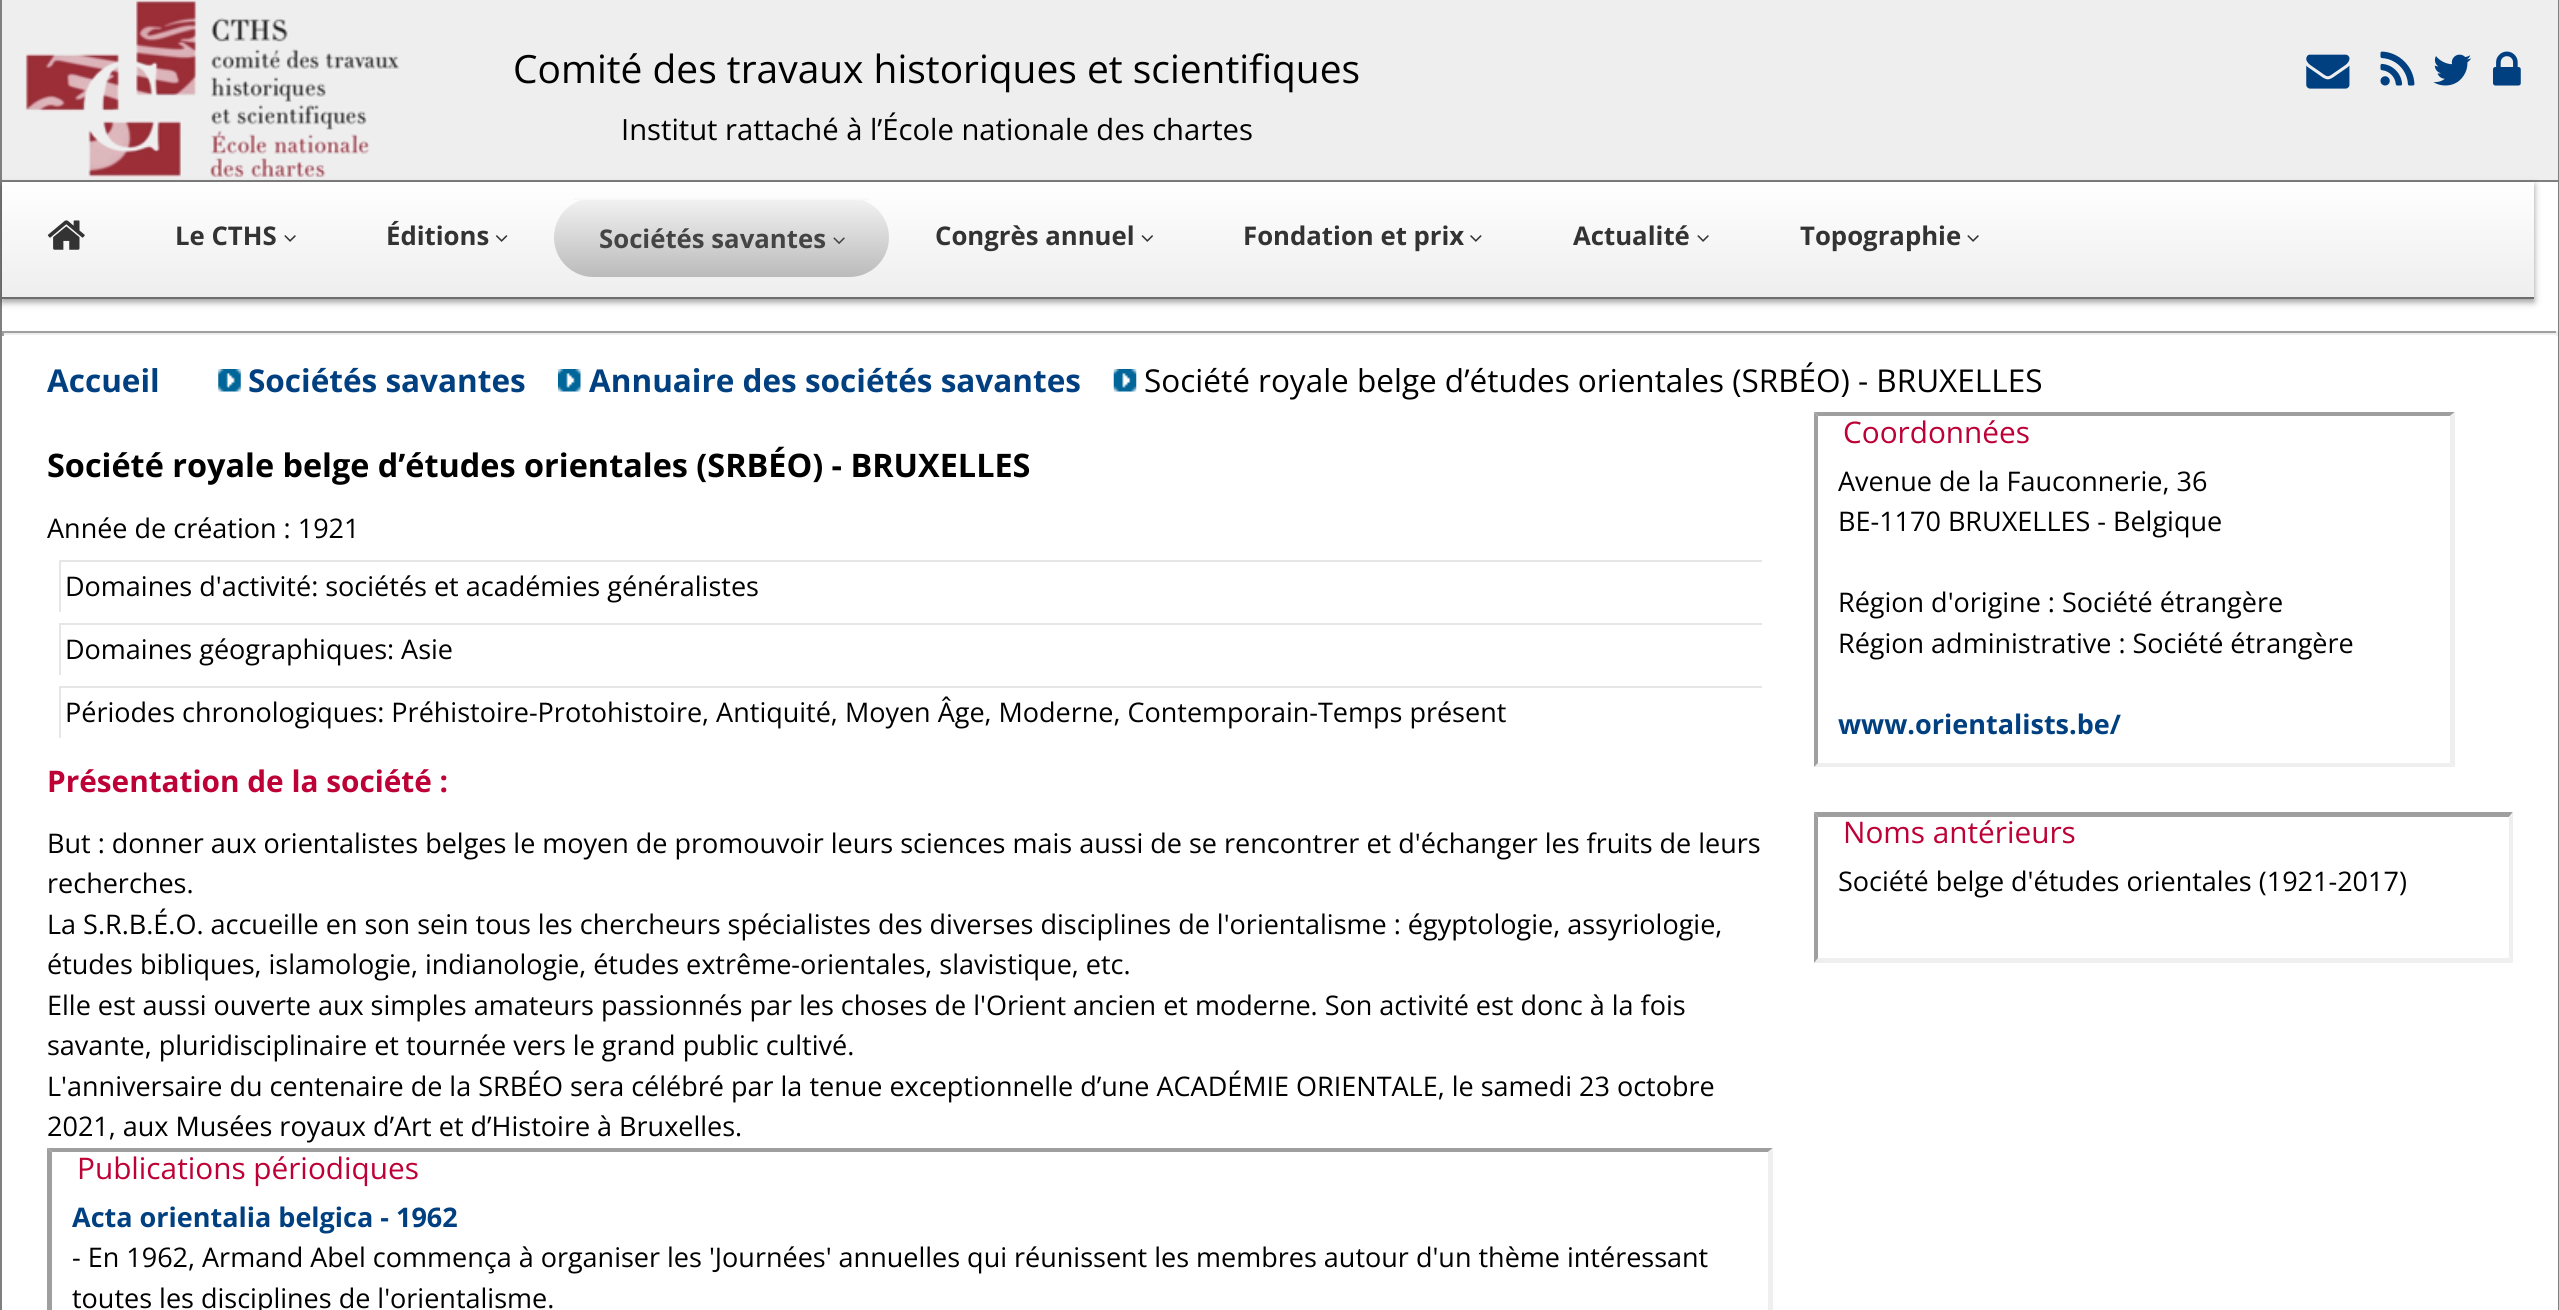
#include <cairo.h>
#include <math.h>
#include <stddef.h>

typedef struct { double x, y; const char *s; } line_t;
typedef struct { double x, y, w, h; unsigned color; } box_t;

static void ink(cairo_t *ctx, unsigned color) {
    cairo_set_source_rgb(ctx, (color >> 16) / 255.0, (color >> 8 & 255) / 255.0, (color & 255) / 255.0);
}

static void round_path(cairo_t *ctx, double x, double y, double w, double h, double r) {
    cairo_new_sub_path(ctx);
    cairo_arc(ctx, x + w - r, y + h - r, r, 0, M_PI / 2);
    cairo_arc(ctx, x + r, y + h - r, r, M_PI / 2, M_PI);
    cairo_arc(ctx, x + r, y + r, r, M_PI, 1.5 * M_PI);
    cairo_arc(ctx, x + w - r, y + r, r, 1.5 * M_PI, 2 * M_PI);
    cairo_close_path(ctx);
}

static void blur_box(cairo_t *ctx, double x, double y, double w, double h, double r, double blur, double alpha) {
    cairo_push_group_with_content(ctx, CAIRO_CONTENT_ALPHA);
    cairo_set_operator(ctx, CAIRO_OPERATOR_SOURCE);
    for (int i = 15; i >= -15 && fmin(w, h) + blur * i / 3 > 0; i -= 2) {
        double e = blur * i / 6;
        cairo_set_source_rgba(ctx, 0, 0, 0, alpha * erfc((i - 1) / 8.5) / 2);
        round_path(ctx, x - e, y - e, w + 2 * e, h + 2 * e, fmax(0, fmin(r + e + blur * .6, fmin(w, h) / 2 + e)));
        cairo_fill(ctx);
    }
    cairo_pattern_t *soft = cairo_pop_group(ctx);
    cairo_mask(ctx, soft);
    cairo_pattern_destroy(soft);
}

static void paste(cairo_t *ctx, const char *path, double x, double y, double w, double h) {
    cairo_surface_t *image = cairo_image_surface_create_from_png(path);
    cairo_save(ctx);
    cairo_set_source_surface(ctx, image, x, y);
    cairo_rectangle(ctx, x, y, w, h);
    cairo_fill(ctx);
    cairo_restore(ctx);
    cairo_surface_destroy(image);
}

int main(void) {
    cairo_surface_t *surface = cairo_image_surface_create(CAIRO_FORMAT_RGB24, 2559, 1310);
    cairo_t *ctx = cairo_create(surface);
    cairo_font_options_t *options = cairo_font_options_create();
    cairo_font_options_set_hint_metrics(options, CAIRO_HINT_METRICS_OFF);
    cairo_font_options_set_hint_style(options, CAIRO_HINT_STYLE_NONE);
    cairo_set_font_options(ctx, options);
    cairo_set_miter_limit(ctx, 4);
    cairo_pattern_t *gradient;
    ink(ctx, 0xFFFFFF);
    cairo_paint(ctx);
    {
        static const box_t items[] = {
            {2558, 0, 1, 1310, 0x7F7F7F},
            {0, 0, 2, 1310, 0x7F7F7F},
            {2, 0, 2556, 180, 0xEEEEEE},
            {2, 180, 2556, 2, 0x7F7F7F},
        };
        for (size_t i = 0; i < sizeof items / sizeof *items; i++) {
            ink(ctx, items[i].color);
            cairo_rectangle(ctx, items[i].x, items[i].y, items[i].w, items[i].h);
            cairo_fill(ctx);
        }
    }
    paste(ctx, "media/1.png", 25, 0, 375, 178);
    cairo_select_font_face(ctx, "Open Sans", CAIRO_FONT_SLANT_NORMAL, CAIRO_FONT_WEIGHT_NORMAL);
    cairo_set_font_size(ctx, 38.9);
    ink(ctx, 0x000000);
    cairo_move_to(ctx, 513, 83);
    cairo_show_text(ctx, "Comité des travaux historiques et scientifiques");
    cairo_set_font_size(ctx, 29.2);
    cairo_move_to(ctx, 621, 140);
    cairo_show_text(ctx, "Institut rattaché à l’École nationale des chartes");
    paste(ctx, "media/2.png", 2306, 54, 44, 35);
    paste(ctx, "media/3.png", 2380, 51, 35, 35);
    paste(ctx, "media/4.png", 2433, 54, 39, 32);
    paste(ctx, "media/5.png", 2493, 51, 28, 35);
    ink(ctx, 0x000000);
    blur_box(ctx, 2, 185, 2532, 117, 0, 3.5, 0.4);
    gradient = cairo_pattern_create_linear(2.2, 182, 2.2, 297);
    cairo_pattern_add_color_stop_rgba(gradient, 0, 1, 1, 1, 1);
    cairo_pattern_add_color_stop_rgba(gradient, 1, 0.933, 0.933, 0.933, 1);
    cairo_set_source(ctx, gradient);
    cairo_pattern_destroy(gradient);
    cairo_rectangle(ctx, 2, 182, 2532, 115);
    cairo_fill(ctx);
    ink(ctx, 0x6D6D6D);
    cairo_rectangle(ctx, 2, 297, 2532, 2);
    cairo_fill(ctx);
    paste(ctx, "media/6.png", 47, 220, 38, 30);
    cairo_select_font_face(ctx, "Open Sans", CAIRO_FONT_SLANT_NORMAL, CAIRO_FONT_WEIGHT_BOLD);
    cairo_set_font_size(ctx, 25.75);
    ink(ctx, 0x333333);
    cairo_move_to(ctx, 175, 245);
    cairo_show_text(ctx, "Le CTHS");
    paste(ctx, "media/7.png", 284, 235, 12, 7);
    cairo_move_to(ctx, 386, 245);
    cairo_show_text(ctx, "Éditions");
    paste(ctx, "media/8.png", 495, 235, 13, 7);
    cairo_save(ctx);
    round_path(ctx, 554, 198, 335, 79, 39.5);
    cairo_clip(ctx);
    gradient = cairo_pattern_create_linear(554, 200, 554, 277);
    cairo_pattern_add_color_stop_rgba(gradient, 0, 0.945, 0.945, 0.945, 1);
    cairo_pattern_add_color_stop_rgba(gradient, 1, 0.733, 0.733, 0.733, 1);
    cairo_set_source(ctx, gradient);
    cairo_pattern_destroy(gradient);
    cairo_new_path(ctx);
    cairo_move_to(ctx, 554, 200);
    cairo_line_to(ctx, 889, 200);
    cairo_line_to(ctx, 889, 237.5);
    cairo_curve_to(ctx, 889, 259.5, 871.5, 277, 849.5, 277);
    cairo_line_to(ctx, 593.5, 277);
    cairo_curve_to(ctx, 571.5, 277, 554, 259.5, 554, 237.5);
    cairo_close_path(ctx);
    cairo_fill(ctx);
    cairo_restore(ctx);
    ink(ctx, 0xF8F8F8);
    cairo_rectangle(ctx, 574, 198, 295, 2);
    cairo_fill(ctx);
    ink(ctx, 0x444444);
    cairo_move_to(ctx, 599, 248);
    cairo_show_text(ctx, "Sociétés savantes");
    paste(ctx, "media/9.png", 833, 237, 12, 7);
    ink(ctx, 0x333333);
    cairo_move_to(ctx, 935, 245);
    cairo_show_text(ctx, "Congrès annuel");
    paste(ctx, "media/10.png", 1141, 235, 12, 7);
    cairo_move_to(ctx, 1243, 245);
    cairo_show_text(ctx, "Fondation et prix");
    paste(ctx, "media/11.png", 1470, 235, 12, 7);
    cairo_move_to(ctx, 1573, 245);
    cairo_show_text(ctx, "Actualité");
    paste(ctx, "media/7.png", 1697, 235, 12, 7);
    cairo_move_to(ctx, 1800, 245);
    cairo_show_text(ctx, "Topographie");
    paste(ctx, "media/7.png", 1967, 235, 12, 7);
    {
        static const box_t items[] = {
            {2, 331, 2556, 2, 0x9F9F9F},
            {2556, 331, 2, 5, 0xEEEEEE},
            {2, 333, 2556, 2, 0xEEEEEE},
            {2, 331, 2, 5, 0x9F9F9F},
        };
        for (size_t i = 0; i < sizeof items / sizeof *items; i++) {
            ink(ctx, items[i].color);
            cairo_rectangle(ctx, items[i].x, items[i].y, items[i].w, items[i].h);
            cairo_fill(ctx);
        }
    }
    cairo_set_font_size(ctx, 31.5);
    ink(ctx, 0x004080);
    cairo_move_to(ctx, 47, 392);
    cairo_show_text(ctx, "Accueil");
    paste(ctx, "media/12.png", 218, 369, 23, 23);
    cairo_move_to(ctx, 248, 392);
    cairo_show_text(ctx, "Sociétés savantes");
    paste(ctx, "media/13.png", 558, 369, 23, 23);
    cairo_move_to(ctx, 589, 392);
    cairo_show_text(ctx, "Annuaire des sociétés savantes");
    paste(ctx, "media/14.png", 1113, 369, 24, 23);
    cairo_select_font_face(ctx, "Open Sans", CAIRO_FONT_SLANT_NORMAL, CAIRO_FONT_WEIGHT_NORMAL);
    ink(ctx, 0x000000);
    cairo_move_to(ctx, 1144, 392);
    cairo_show_text(ctx, "Société royale belge d’études orientales (SRBÉO) - BRUXELLES");
    cairo_select_font_face(ctx, "Open Sans", CAIRO_FONT_SLANT_NORMAL, CAIRO_FONT_WEIGHT_BOLD);
    cairo_set_font_size(ctx, 32.4);
    cairo_move_to(ctx, 47, 477);
    cairo_show_text(ctx, "Société royale belge d’études orientales (SRBÉO) - BRUXELLES");
    cairo_select_font_face(ctx, "Open Sans", CAIRO_FONT_SLANT_NORMAL, CAIRO_FONT_WEIGHT_NORMAL);
    cairo_set_font_size(ctx, 27);
    cairo_move_to(ctx, 47, 538);
    cairo_show_text(ctx, "Année de création : 1921");
    ink(ctx, 0xE6E6E6);
    cairo_rectangle(ctx, 59, 560, 1703, 2);
    cairo_fill(ctx);
    cairo_rectangle(ctx, 59, 560, 2, 52);
    cairo_fill(ctx);
    ink(ctx, 0x000000);
    cairo_move_to(ctx, 65, 596);
    cairo_show_text(ctx, "Domaines d'activité: sociétés et académies généralistes");
    ink(ctx, 0xE6E6E6);
    cairo_rectangle(ctx, 59, 623, 1703, 2);
    cairo_fill(ctx);
    cairo_rectangle(ctx, 59, 623, 2, 52);
    cairo_fill(ctx);
    ink(ctx, 0x000000);
    cairo_move_to(ctx, 65, 659);
    cairo_show_text(ctx, "Domaines géographiques: Asie");
    ink(ctx, 0xE6E6E6);
    cairo_rectangle(ctx, 59, 686, 1703, 2);
    cairo_fill(ctx);
    cairo_rectangle(ctx, 59, 686, 2, 52);
    cairo_fill(ctx);
    ink(ctx, 0x000000);
    cairo_move_to(ctx, 65, 722);
    cairo_show_text(ctx, "Périodes chronologiques: Préhistoire-Protohistoire, Antiquité, Moyen Âge, Moderne, Contemporain-Temps présent");
    cairo_select_font_face(ctx, "Open Sans", CAIRO_FONT_SLANT_NORMAL, CAIRO_FONT_WEIGHT_BOLD);
    cairo_set_font_size(ctx, 29.75);
    ink(ctx, 0xBD0036);
    cairo_move_to(ctx, 47, 792);
    cairo_show_text(ctx, "Présentation de la société :");
    cairo_select_font_face(ctx, "Open Sans", CAIRO_FONT_SLANT_NORMAL, CAIRO_FONT_WEIGHT_NORMAL);
    cairo_set_font_size(ctx, 27);
    ink(ctx, 0x000000);
    {
        static const line_t items[] = {
            {47, 853, "But : donner aux orientalistes belges le moyen de promouvoir leurs sciences mais aussi de se rencontrer et d'échanger les fruits de leurs"},
            {47, 893, "recherches."},
            {47, 934, "La S.R.B.É.O. accueille en son sein tous les chercheurs spécialistes des diverses disciplines de l'orientalisme : égyptologie, assyriologie,"},
            {47, 974, "études bibliques, islamologie, indianologie, études extrême-orientales, slavistique, etc."},
            {47, 1015, "Elle est aussi ouverte aux simples amateurs passionnés par les choses de l'Orient ancien et moderne. Son activité est donc à la fois"},
            {47, 1055, "savante, pluridisciplinaire et tournée vers le grand public cultivé."},
            {47, 1096, "L'anniversaire du centenaire de la SRBÉO sera célébré par la tenue exceptionnelle d’une ACADÉMIE ORIENTALE, le samedi 23 octobre"},
            {47, 1136, "2021, aux Musées royaux d’Art et d’Histoire à Bruxelles."},
        };
        for (size_t i = 0; i < sizeof items / sizeof *items; i++) {
            cairo_move_to(ctx, items[i].x, items[i].y);
            cairo_show_text(ctx, items[i].s);
        }
    }
    ink(ctx, 0x9F9F9F);
    cairo_new_path(ctx);
    cairo_move_to(ctx, 47, 1148);
    cairo_line_to(ctx, 1773, 1148);
    cairo_line_to(ctx, 1768, 1152);
    cairo_line_to(ctx, 52, 1152);
    cairo_close_path(ctx);
    cairo_fill(ctx);
    ink(ctx, 0xEFEFEF);
    cairo_new_path(ctx);
    cairo_move_to(ctx, 1773, 1148);
    cairo_line_to(ctx, 1773, 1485);
    cairo_line_to(ctx, 1768, 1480);
    cairo_line_to(ctx, 1768, 1152);
    cairo_close_path(ctx);
    cairo_fill(ctx);
    ink(ctx, 0x9F9F9F);
    cairo_new_path(ctx);
    cairo_move_to(ctx, 47, 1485);
    cairo_line_to(ctx, 47, 1148);
    cairo_line_to(ctx, 52, 1152);
    cairo_line_to(ctx, 52, 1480);
    cairo_close_path(ctx);
    cairo_fill(ctx);
    cairo_set_font_size(ctx, 29.75);
    ink(ctx, 0xBD0036);
    cairo_move_to(ctx, 77, 1179);
    cairo_show_text(ctx, "Publications périodiques");
    cairo_select_font_face(ctx, "Open Sans", CAIRO_FONT_SLANT_NORMAL, CAIRO_FONT_WEIGHT_BOLD);
    cairo_set_font_size(ctx, 27);
    ink(ctx, 0x004080);
    cairo_move_to(ctx, 72, 1227);
    cairo_show_text(ctx, "Acta orientalia belgica - 1962");
    cairo_select_font_face(ctx, "Open Sans", CAIRO_FONT_SLANT_NORMAL, CAIRO_FONT_WEIGHT_NORMAL);
    ink(ctx, 0x000000);
    cairo_move_to(ctx, 72, 1267);
    cairo_show_text(ctx, "- En 1962, Armand Abel commença à organiser les 'Journées' annuelles qui réunissent les membres autour d'un thème intéressant");
    cairo_move_to(ctx, 72, 1308);
    cairo_show_text(ctx, "toutes les disciplines de l'orientalisme.");
    ink(ctx, 0x9F9F9F);
    cairo_new_path(ctx);
    cairo_move_to(ctx, 1814, 412);
    cairo_line_to(ctx, 2455, 412);
    cairo_line_to(ctx, 2450, 416);
    cairo_line_to(ctx, 1818, 416);
    cairo_close_path(ctx);
    cairo_fill(ctx);
    ink(ctx, 0xEFEFEF);
    cairo_new_path(ctx);
    cairo_move_to(ctx, 2455, 412);
    cairo_line_to(ctx, 2455, 767);
    cairo_line_to(ctx, 2450, 763);
    cairo_line_to(ctx, 2450, 416);
    cairo_close_path(ctx);
    cairo_fill(ctx);
    cairo_new_path(ctx);
    cairo_move_to(ctx, 2455, 767);
    cairo_line_to(ctx, 1814, 767);
    cairo_line_to(ctx, 1818, 763);
    cairo_line_to(ctx, 2450, 763);
    cairo_close_path(ctx);
    cairo_fill(ctx);
    ink(ctx, 0x9F9F9F);
    cairo_new_path(ctx);
    cairo_move_to(ctx, 1814, 767);
    cairo_line_to(ctx, 1814, 412);
    cairo_line_to(ctx, 1818, 416);
    cairo_line_to(ctx, 1818, 763);
    cairo_close_path(ctx);
    cairo_fill(ctx);
    cairo_set_font_size(ctx, 29.75);
    ink(ctx, 0xBD0036);
    cairo_move_to(ctx, 1843, 443);
    cairo_show_text(ctx, "Coordonnées");
    cairo_set_font_size(ctx, 27);
    ink(ctx, 0x000000);
    {
        static const line_t items[] = {
            {1838, 491, "Avenue de la Fauconnerie, 36"},
            {1838, 531, "BE-1170 BRUXELLES - Belgique"},
            {1838, 612, "Région d'origine : Société étrangère"},
            {1838, 653, "Région administrative : Société étrangère"},
        };
        for (size_t i = 0; i < sizeof items / sizeof *items; i++) {
            cairo_move_to(ctx, items[i].x, items[i].y);
            cairo_show_text(ctx, items[i].s);
        }
    }
    cairo_select_font_face(ctx, "Open Sans", CAIRO_FONT_SLANT_NORMAL, CAIRO_FONT_WEIGHT_BOLD);
    ink(ctx, 0x004080);
    cairo_move_to(ctx, 1838, 734);
    cairo_show_text(ctx, "www.orientalists.be/");
    ink(ctx, 0x9F9F9F);
    cairo_new_path(ctx);
    cairo_move_to(ctx, 1814, 812);
    cairo_line_to(ctx, 2513, 812);
    cairo_line_to(ctx, 2509, 817);
    cairo_line_to(ctx, 1818, 817);
    cairo_close_path(ctx);
    cairo_fill(ctx);
    ink(ctx, 0xEFEFEF);
    cairo_new_path(ctx);
    cairo_move_to(ctx, 2513, 812);
    cairo_line_to(ctx, 2513, 963);
    cairo_line_to(ctx, 2509, 958);
    cairo_line_to(ctx, 2509, 817);
    cairo_close_path(ctx);
    cairo_fill(ctx);
    cairo_new_path(ctx);
    cairo_move_to(ctx, 2513, 963);
    cairo_line_to(ctx, 1814, 963);
    cairo_line_to(ctx, 1818, 958);
    cairo_line_to(ctx, 2509, 958);
    cairo_close_path(ctx);
    cairo_fill(ctx);
    ink(ctx, 0x9F9F9F);
    cairo_new_path(ctx);
    cairo_move_to(ctx, 1814, 963);
    cairo_line_to(ctx, 1814, 812);
    cairo_line_to(ctx, 1818, 817);
    cairo_line_to(ctx, 1818, 958);
    cairo_close_path(ctx);
    cairo_fill(ctx);
    cairo_select_font_face(ctx, "Open Sans", CAIRO_FONT_SLANT_NORMAL, CAIRO_FONT_WEIGHT_NORMAL);
    cairo_set_font_size(ctx, 29.75);
    ink(ctx, 0xBD0036);
    cairo_move_to(ctx, 1843, 843);
    cairo_show_text(ctx, "Noms antérieurs");
    cairo_set_font_size(ctx, 27);
    ink(ctx, 0x000000);
    cairo_move_to(ctx, 1838, 891);
    cairo_show_text(ctx, "Société belge d'études orientales (1921-2017)");
    cairo_surface_write_to_png(surface, "image.png");
    cairo_font_options_destroy(options);
    cairo_destroy(ctx);
    cairo_surface_destroy(surface);
    return 0;
}
